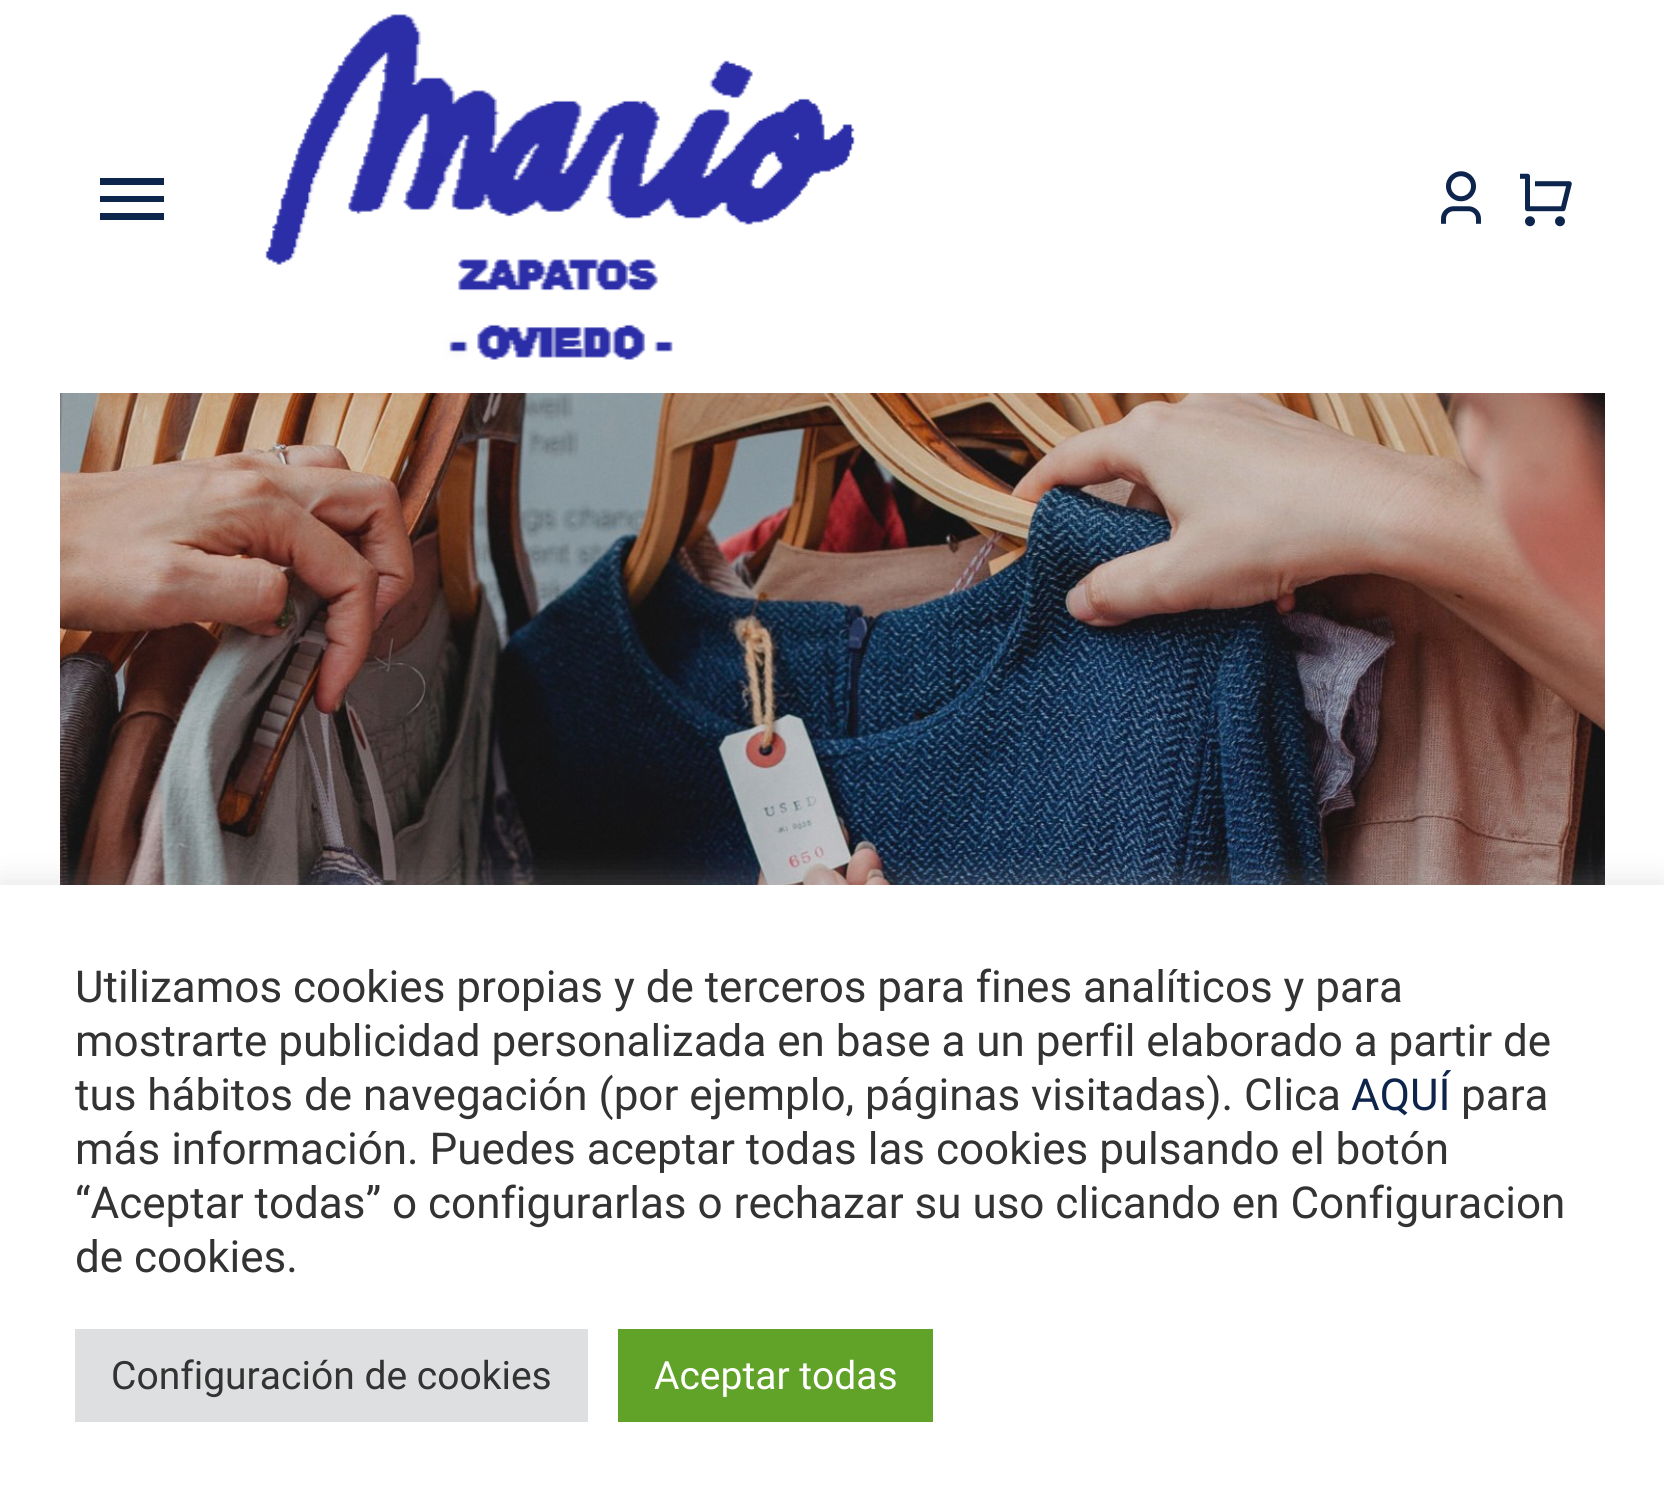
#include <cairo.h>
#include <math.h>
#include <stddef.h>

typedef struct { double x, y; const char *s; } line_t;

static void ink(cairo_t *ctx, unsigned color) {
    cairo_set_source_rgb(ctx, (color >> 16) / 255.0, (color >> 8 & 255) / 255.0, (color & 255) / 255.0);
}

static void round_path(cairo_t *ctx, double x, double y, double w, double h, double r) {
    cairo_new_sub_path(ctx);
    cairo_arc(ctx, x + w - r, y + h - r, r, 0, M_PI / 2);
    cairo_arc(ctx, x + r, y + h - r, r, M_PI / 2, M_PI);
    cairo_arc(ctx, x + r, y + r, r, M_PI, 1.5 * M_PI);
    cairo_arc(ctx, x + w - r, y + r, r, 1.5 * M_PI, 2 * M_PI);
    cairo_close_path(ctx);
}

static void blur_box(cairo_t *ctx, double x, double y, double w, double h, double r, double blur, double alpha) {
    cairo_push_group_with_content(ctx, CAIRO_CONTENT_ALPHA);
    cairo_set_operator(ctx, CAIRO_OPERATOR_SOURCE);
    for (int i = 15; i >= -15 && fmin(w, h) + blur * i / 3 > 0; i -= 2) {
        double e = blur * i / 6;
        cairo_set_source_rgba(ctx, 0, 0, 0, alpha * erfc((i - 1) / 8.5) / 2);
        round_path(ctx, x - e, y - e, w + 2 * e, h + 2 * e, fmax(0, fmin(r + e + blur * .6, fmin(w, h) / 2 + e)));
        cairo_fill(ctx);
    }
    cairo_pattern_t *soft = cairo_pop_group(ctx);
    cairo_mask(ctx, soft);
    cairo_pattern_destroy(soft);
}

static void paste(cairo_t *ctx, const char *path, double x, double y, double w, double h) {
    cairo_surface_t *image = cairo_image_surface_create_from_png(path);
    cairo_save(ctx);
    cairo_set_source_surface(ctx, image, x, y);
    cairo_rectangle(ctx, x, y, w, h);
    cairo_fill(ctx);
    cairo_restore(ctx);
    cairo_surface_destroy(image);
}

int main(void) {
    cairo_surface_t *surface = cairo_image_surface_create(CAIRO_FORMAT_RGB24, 1664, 1510);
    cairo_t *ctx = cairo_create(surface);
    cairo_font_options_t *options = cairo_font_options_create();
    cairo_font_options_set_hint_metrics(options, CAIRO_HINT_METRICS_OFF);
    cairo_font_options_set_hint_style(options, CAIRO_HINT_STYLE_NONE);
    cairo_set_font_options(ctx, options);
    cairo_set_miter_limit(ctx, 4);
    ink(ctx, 0xFFFFFF);
    cairo_paint(ctx);
    ink(ctx, 0x0D244C);
    cairo_new_path(ctx);
    cairo_move_to(ctx, 100, 178);
    cairo_line_to(ctx, 164, 178);
    cairo_line_to(ctx, 164, 185);
    cairo_line_to(ctx, 100, 185);
    cairo_close_path(ctx);
    cairo_move_to(ctx, 100, 202);
    cairo_line_to(ctx, 100, 196);
    cairo_line_to(ctx, 164, 196);
    cairo_line_to(ctx, 164, 202);
    cairo_close_path(ctx);
    cairo_move_to(ctx, 100, 220);
    cairo_line_to(ctx, 100, 213);
    cairo_line_to(ctx, 164, 213);
    cairo_line_to(ctx, 164, 220);
    cairo_close_path(ctx);
    cairo_fill(ctx);
    paste(ctx, "media/1.png", 265, 14, 590, 346);
    paste(ctx, "media/2.png", 1441, 171, 40, 53);
    paste(ctx, "media/3.png", 1520, 173, 52, 54);
    paste(ctx, "media/4.png", 60, 393, 1545, 492);
    ink(ctx, 0xACABAB);
    blur_box(ctx, 0, 882, 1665, 627, 0, 15, 0.3);
    ink(ctx, 0xFFFFFF);
    cairo_rectangle(ctx, 0, 885, 1664, 625);
    cairo_fill(ctx);
    cairo_select_font_face(ctx, "Roboto", CAIRO_FONT_SLANT_NORMAL, CAIRO_FONT_WEIGHT_NORMAL);
    cairo_set_font_size(ctx, 44);
    ink(ctx, 0x333333);
    {
        static const line_t items[] = {
            {75, 1002, "Utilizamos cookies propias y de terceros para fines analíticos y para"},
            {75, 1056, "mostrarte publicidad personalizada en base a un perfil elaborado a partir de"},
            {75, 1110, "tus hábitos de navegación (por ejemplo, páginas visitadas). Clica"},
        };
        for (size_t i = 0; i < sizeof items / sizeof *items; i++) {
            cairo_move_to(ctx, items[i].x, items[i].y);
            cairo_show_text(ctx, items[i].s);
        }
    }
    ink(ctx, 0x0D244C);
    cairo_move_to(ctx, 1351, 1110);
    cairo_show_text(ctx, "AQUÍ");
    ink(ctx, 0x333333);
    {
        static const line_t items[] = {
            {1461, 1110, "para"},
            {75, 1164, "más información. Puedes aceptar todas las cookies pulsando el botón"},
            {75, 1218, "“Aceptar todas” o configurarlas o rechazar su uso clicando en Configuracion"},
            {75, 1272, "de cookies."},
        };
        for (size_t i = 0; i < sizeof items / sizeof *items; i++) {
            cairo_move_to(ctx, items[i].x, items[i].y);
            cairo_show_text(ctx, items[i].s);
        }
    }
    ink(ctx, 0xDEDFE0);
    cairo_rectangle(ctx, 75, 1329, 513, 93);
    cairo_fill(ctx);
    cairo_set_font_size(ctx, 39);
    ink(ctx, 0x333333);
    cairo_move_to(ctx, 111, 1389);
    cairo_show_text(ctx, "Configuración de cookies");
    ink(ctx, 0x61A229);
    cairo_rectangle(ctx, 618, 1329, 315, 93);
    cairo_fill(ctx);
    ink(ctx, 0xFFFFFF);
    cairo_move_to(ctx, 654, 1389);
    cairo_show_text(ctx, "Aceptar todas");
    cairo_surface_write_to_png(surface, "image.png");
    cairo_font_options_destroy(options);
    cairo_destroy(ctx);
    cairo_surface_destroy(surface);
    return 0;
}
